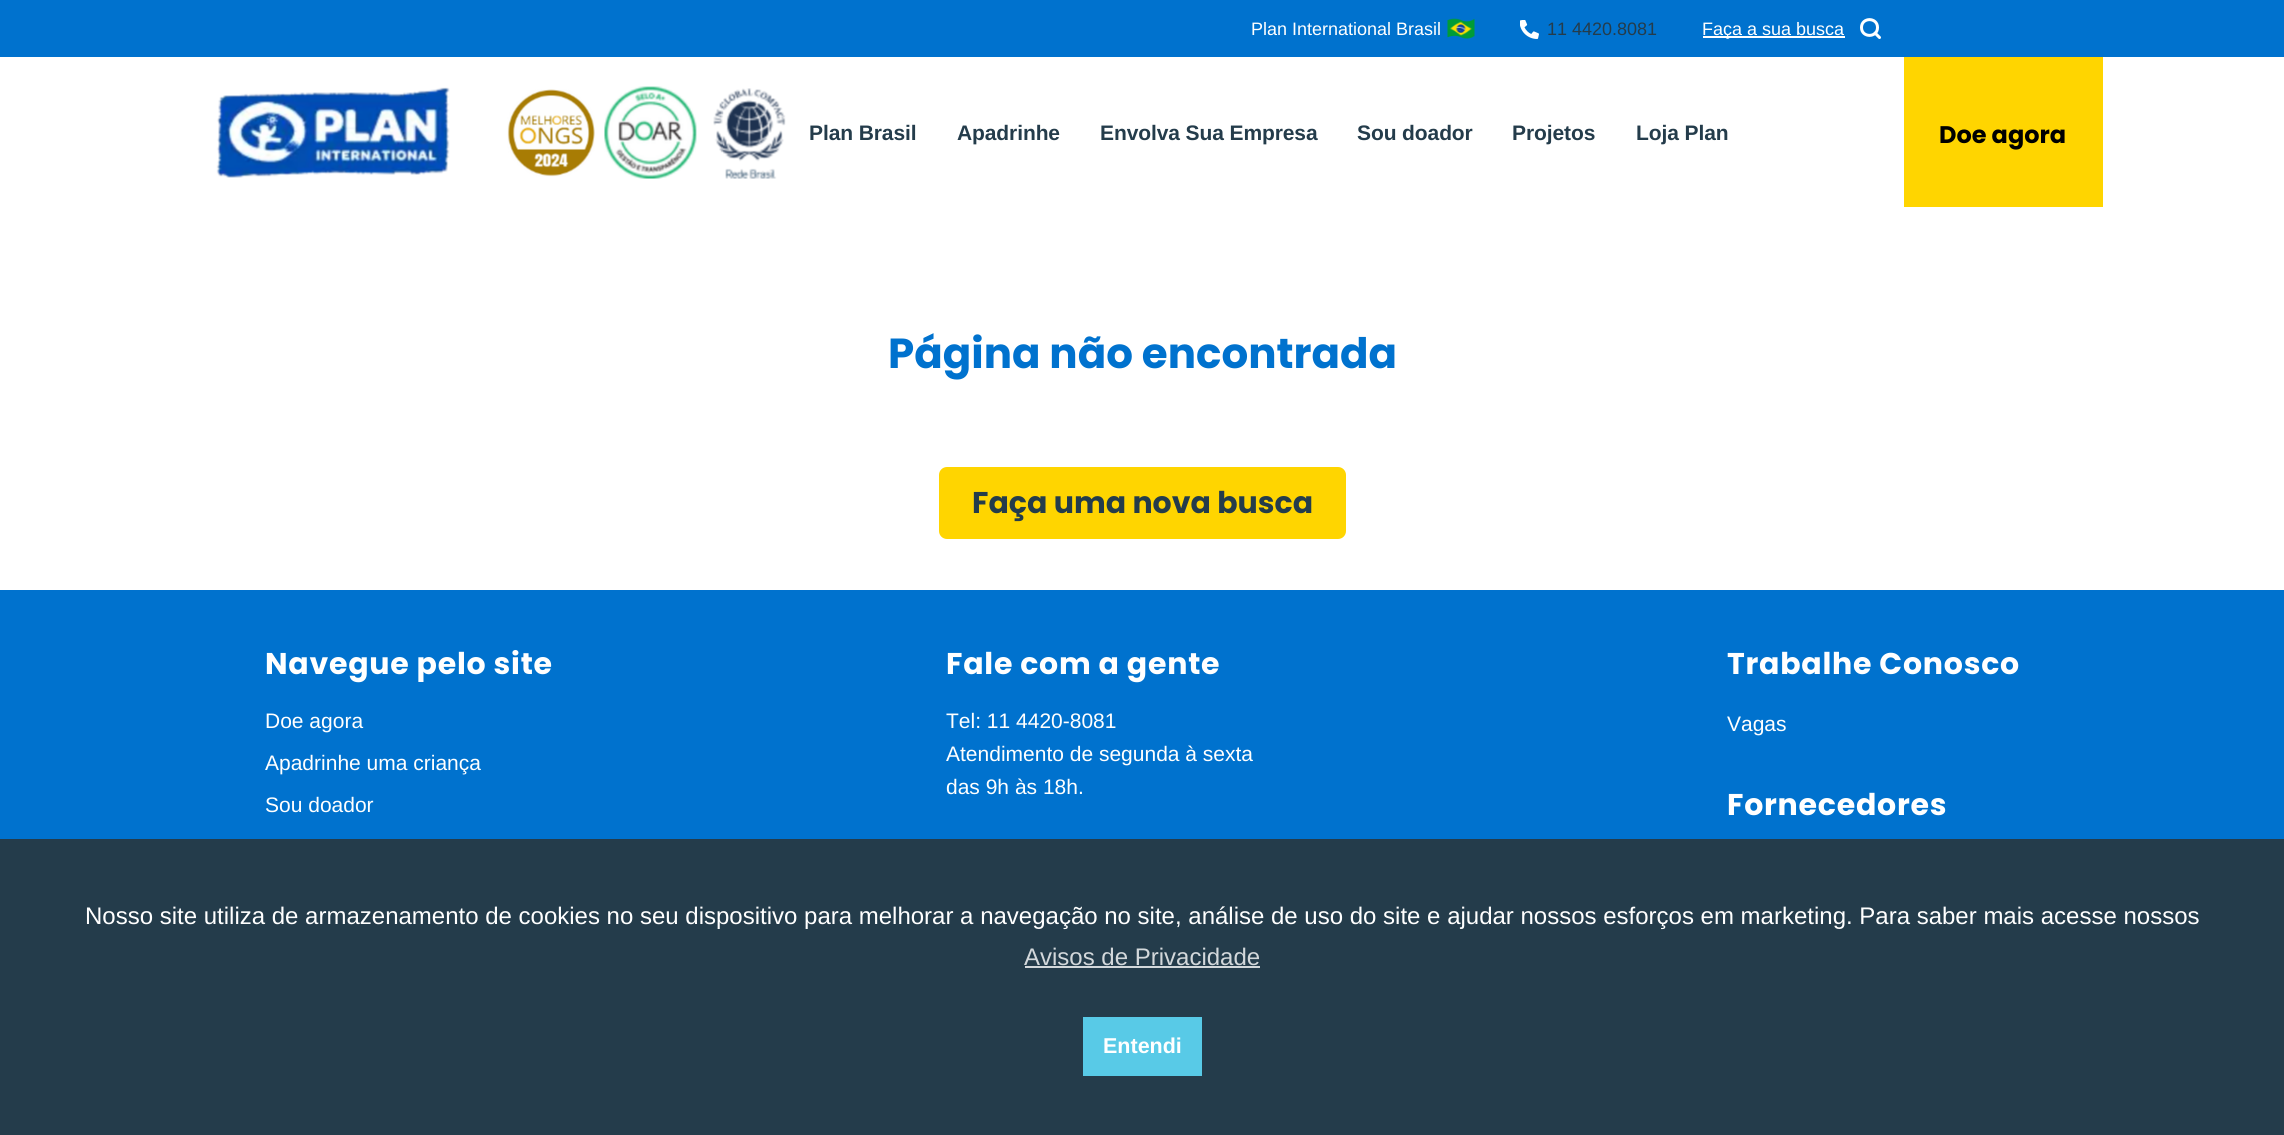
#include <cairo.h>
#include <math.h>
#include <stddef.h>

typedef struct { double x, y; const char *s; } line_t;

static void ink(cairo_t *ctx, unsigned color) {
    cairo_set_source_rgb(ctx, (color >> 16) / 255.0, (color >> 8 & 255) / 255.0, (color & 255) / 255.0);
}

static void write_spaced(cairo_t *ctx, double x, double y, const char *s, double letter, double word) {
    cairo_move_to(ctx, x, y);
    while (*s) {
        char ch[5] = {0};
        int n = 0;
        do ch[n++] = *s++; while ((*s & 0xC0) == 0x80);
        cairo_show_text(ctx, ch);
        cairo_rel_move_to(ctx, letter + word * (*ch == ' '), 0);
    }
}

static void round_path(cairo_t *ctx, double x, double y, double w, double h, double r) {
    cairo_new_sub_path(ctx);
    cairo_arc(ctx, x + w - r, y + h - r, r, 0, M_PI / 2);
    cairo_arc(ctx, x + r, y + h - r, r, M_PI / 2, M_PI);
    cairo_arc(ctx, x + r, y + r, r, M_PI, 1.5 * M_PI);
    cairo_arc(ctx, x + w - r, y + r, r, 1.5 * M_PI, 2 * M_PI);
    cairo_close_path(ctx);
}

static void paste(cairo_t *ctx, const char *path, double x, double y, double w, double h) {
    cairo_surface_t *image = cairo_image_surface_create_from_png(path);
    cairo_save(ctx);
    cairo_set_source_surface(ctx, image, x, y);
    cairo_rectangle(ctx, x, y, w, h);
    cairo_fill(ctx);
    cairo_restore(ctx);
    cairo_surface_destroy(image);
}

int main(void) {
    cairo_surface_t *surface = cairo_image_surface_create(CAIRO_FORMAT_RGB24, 2284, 1135);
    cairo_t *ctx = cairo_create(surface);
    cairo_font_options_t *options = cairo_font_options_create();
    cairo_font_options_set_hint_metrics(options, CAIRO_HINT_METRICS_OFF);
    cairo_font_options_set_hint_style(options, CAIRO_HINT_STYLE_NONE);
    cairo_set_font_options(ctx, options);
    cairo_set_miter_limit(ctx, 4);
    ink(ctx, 0xFFFFFF);
    cairo_paint(ctx);
    ink(ctx, 0x0072CE);
    cairo_rectangle(ctx, 0, 0, 2284, 57);
    cairo_fill(ctx);
    cairo_select_font_face(ctx, "Liberation Sans", CAIRO_FONT_SLANT_NORMAL, CAIRO_FONT_WEIGHT_NORMAL);
    cairo_set_font_size(ctx, 18);
    ink(ctx, 0xFFFFFF);
    cairo_move_to(ctx, 1251, 35);
    cairo_show_text(ctx, "Plan International Brasil");
    paste(ctx, "media/1.png", 1447, 18, 28, 21);
    paste(ctx, "media/2.png", 1520, 20, 19, 19);
    ink(ctx, 0x243C4B);
    cairo_move_to(ctx, 1547, 35);
    cairo_show_text(ctx, "11 4420.8081");
    ink(ctx, 0xFFFFFF);
    cairo_rectangle(ctx, 1703, 36, 142, 2);
    cairo_fill(ctx);
    cairo_move_to(ctx, 1702, 35);
    cairo_show_text(ctx, "Faça a sua busca");
    cairo_new_path(ctx);
    cairo_move_to(ctx, 1877.5, 27.5);
    cairo_curve_to(ctx, 1877.5, 38, 1861.5, 38, 1861.5, 27.5);
    cairo_curve_to(ctx, 1861.5, 17, 1877.5, 17, 1877.5, 27.5);
    cairo_close_path(ctx);
    cairo_move_to(ctx, 1879.5, 37.5);
    cairo_line_to(ctx, 1875, 33);
    cairo_set_line_width(ctx, 3);
    cairo_set_line_cap(ctx, CAIRO_LINE_CAP_ROUND);
    cairo_set_line_join(ctx, CAIRO_LINE_JOIN_ROUND);
    cairo_stroke(ctx);
    paste(ctx, "media/3.png", 216, 87, 234, 91);
    paste(ctx, "media/4.png", 507, 89, 88, 88);
    paste(ctx, "media/5.png", 604, 86, 93, 93);
    paste(ctx, "media/6.png", 713, 88, 73, 91);
    cairo_select_font_face(ctx, "Liberation Sans", CAIRO_FONT_SLANT_NORMAL, CAIRO_FONT_WEIGHT_BOLD);
    cairo_set_font_size(ctx, 21);
    ink(ctx, 0x243C4B);
    {
        static const line_t items[] = {
            {809, 140, "Plan Brasil"},
            {957, 140, "Apadrinhe"},
            {1100, 140, "Envolva Sua Empresa"},
            {1357, 140, "Sou doador"},
            {1512, 140, "Projetos"},
            {1636, 140, "Loja Plan"},
        };
        for (size_t i = 0; i < sizeof items / sizeof *items; i++) {
            write_spaced(ctx, items[i].x, items[i].y, items[i].s, -0.1, 0);
        }
    }
    ink(ctx, 0xFFD500);
    cairo_rectangle(ctx, 1904, 57, 199, 150);
    cairo_fill(ctx);
    cairo_select_font_face(ctx, "Poppins", CAIRO_FONT_SLANT_NORMAL, CAIRO_FONT_WEIGHT_BOLD);
    cairo_set_font_size(ctx, 24);
    ink(ctx, 0x000000);
    cairo_move_to(ctx, 1939, 143);
    cairo_show_text(ctx, "Doe agora");
    cairo_set_font_size(ctx, 42);
    ink(ctx, 0x0072CE);
    cairo_move_to(ctx, 888, 368);
    cairo_show_text(ctx, "Página não encontrada");
    ink(ctx, 0xFFD500);
    round_path(ctx, 939, 467, 407, 72, 8);
    cairo_fill(ctx);
    cairo_set_font_size(ctx, 30);
    ink(ctx, 0x243C4B);
    cairo_move_to(ctx, 972, 513);
    cairo_show_text(ctx, "Faça uma nova busca");
    ink(ctx, 0x0072CE);
    cairo_rectangle(ctx, 0, 590, 2284, 249);
    cairo_fill(ctx);
    ink(ctx, 0xFFFFFF);
    write_spaced(ctx, 265, 674, "Navegue pelo site", 0.75, 0);
    cairo_select_font_face(ctx, "Liberation Sans", CAIRO_FONT_SLANT_NORMAL, CAIRO_FONT_WEIGHT_NORMAL);
    cairo_set_font_size(ctx, 21);
    {
        static const line_t items[] = {
            {265, 728, "Doe agora"},
            {265, 770, "Apadrinhe uma criança"},
            {265, 812, "Sou doador"},
        };
        for (size_t i = 0; i < sizeof items / sizeof *items; i++) {
            cairo_move_to(ctx, items[i].x, items[i].y);
            cairo_show_text(ctx, items[i].s);
        }
    }
    cairo_select_font_face(ctx, "Poppins", CAIRO_FONT_SLANT_NORMAL, CAIRO_FONT_WEIGHT_BOLD);
    cairo_set_font_size(ctx, 30);
    write_spaced(ctx, 946, 674, "Fale com a gente", 0.75, 0);
    cairo_select_font_face(ctx, "Liberation Sans", CAIRO_FONT_SLANT_NORMAL, CAIRO_FONT_WEIGHT_NORMAL);
    cairo_set_font_size(ctx, 21);
    {
        static const line_t items[] = {
            {946, 728, "Tel: 11 4420-8081"},
            {946, 761, "Atendimento de segunda à sexta"},
            {946, 794, "das 9h às 18h."},
        };
        for (size_t i = 0; i < sizeof items / sizeof *items; i++) {
            cairo_move_to(ctx, items[i].x, items[i].y);
            cairo_show_text(ctx, items[i].s);
        }
    }
    cairo_select_font_face(ctx, "Poppins", CAIRO_FONT_SLANT_NORMAL, CAIRO_FONT_WEIGHT_BOLD);
    cairo_set_font_size(ctx, 30);
    write_spaced(ctx, 1727, 674, "Trabalhe Conosco", 0.75, 0);
    cairo_select_font_face(ctx, "Liberation Sans", CAIRO_FONT_SLANT_NORMAL, CAIRO_FONT_WEIGHT_NORMAL);
    cairo_set_font_size(ctx, 21);
    cairo_move_to(ctx, 1727, 731);
    cairo_show_text(ctx, "Vagas");
    cairo_select_font_face(ctx, "Poppins", CAIRO_FONT_SLANT_NORMAL, CAIRO_FONT_WEIGHT_BOLD);
    cairo_set_font_size(ctx, 30);
    write_spaced(ctx, 1727, 815, "Fornecedores", 0.75, 0);
    ink(ctx, 0x243C4B);
    cairo_rectangle(ctx, 0, 839, 2284, 296);
    cairo_fill(ctx);
    cairo_select_font_face(ctx, "Liberation Sans", CAIRO_FONT_SLANT_NORMAL, CAIRO_FONT_WEIGHT_NORMAL);
    cairo_set_font_size(ctx, 24);
    ink(ctx, 0xFFFFFF);
    cairo_move_to(ctx, 85, 924);
    cairo_show_text(ctx, "Nosso site utiliza de armazenamento de cookies no seu dispositivo para melhorar a navegação no site, análise de uso do site e ajudar nossos esforços em marketing. Para saber mais acesse nossos");
    ink(ctx, 0xD3D8DB);
    cairo_move_to(ctx, 1024, 965);
    cairo_show_text(ctx, "Avisos de Privacidade");
    cairo_rectangle(ctx, 1025, 966, 235, 2);
    cairo_fill(ctx);
    ink(ctx, 0x58CAE7);
    cairo_rectangle(ctx, 1083, 1017, 119, 59);
    cairo_fill(ctx);
    cairo_select_font_face(ctx, "Liberation Sans", CAIRO_FONT_SLANT_NORMAL, CAIRO_FONT_WEIGHT_BOLD);
    cairo_set_font_size(ctx, 21.5);
    ink(ctx, 0xFFFFFF);
    cairo_move_to(ctx, 1103, 1053);
    cairo_show_text(ctx, "Entendi");
    cairo_surface_write_to_png(surface, "image.png");
    cairo_font_options_destroy(options);
    cairo_destroy(ctx);
    cairo_surface_destroy(surface);
    return 0;
}
